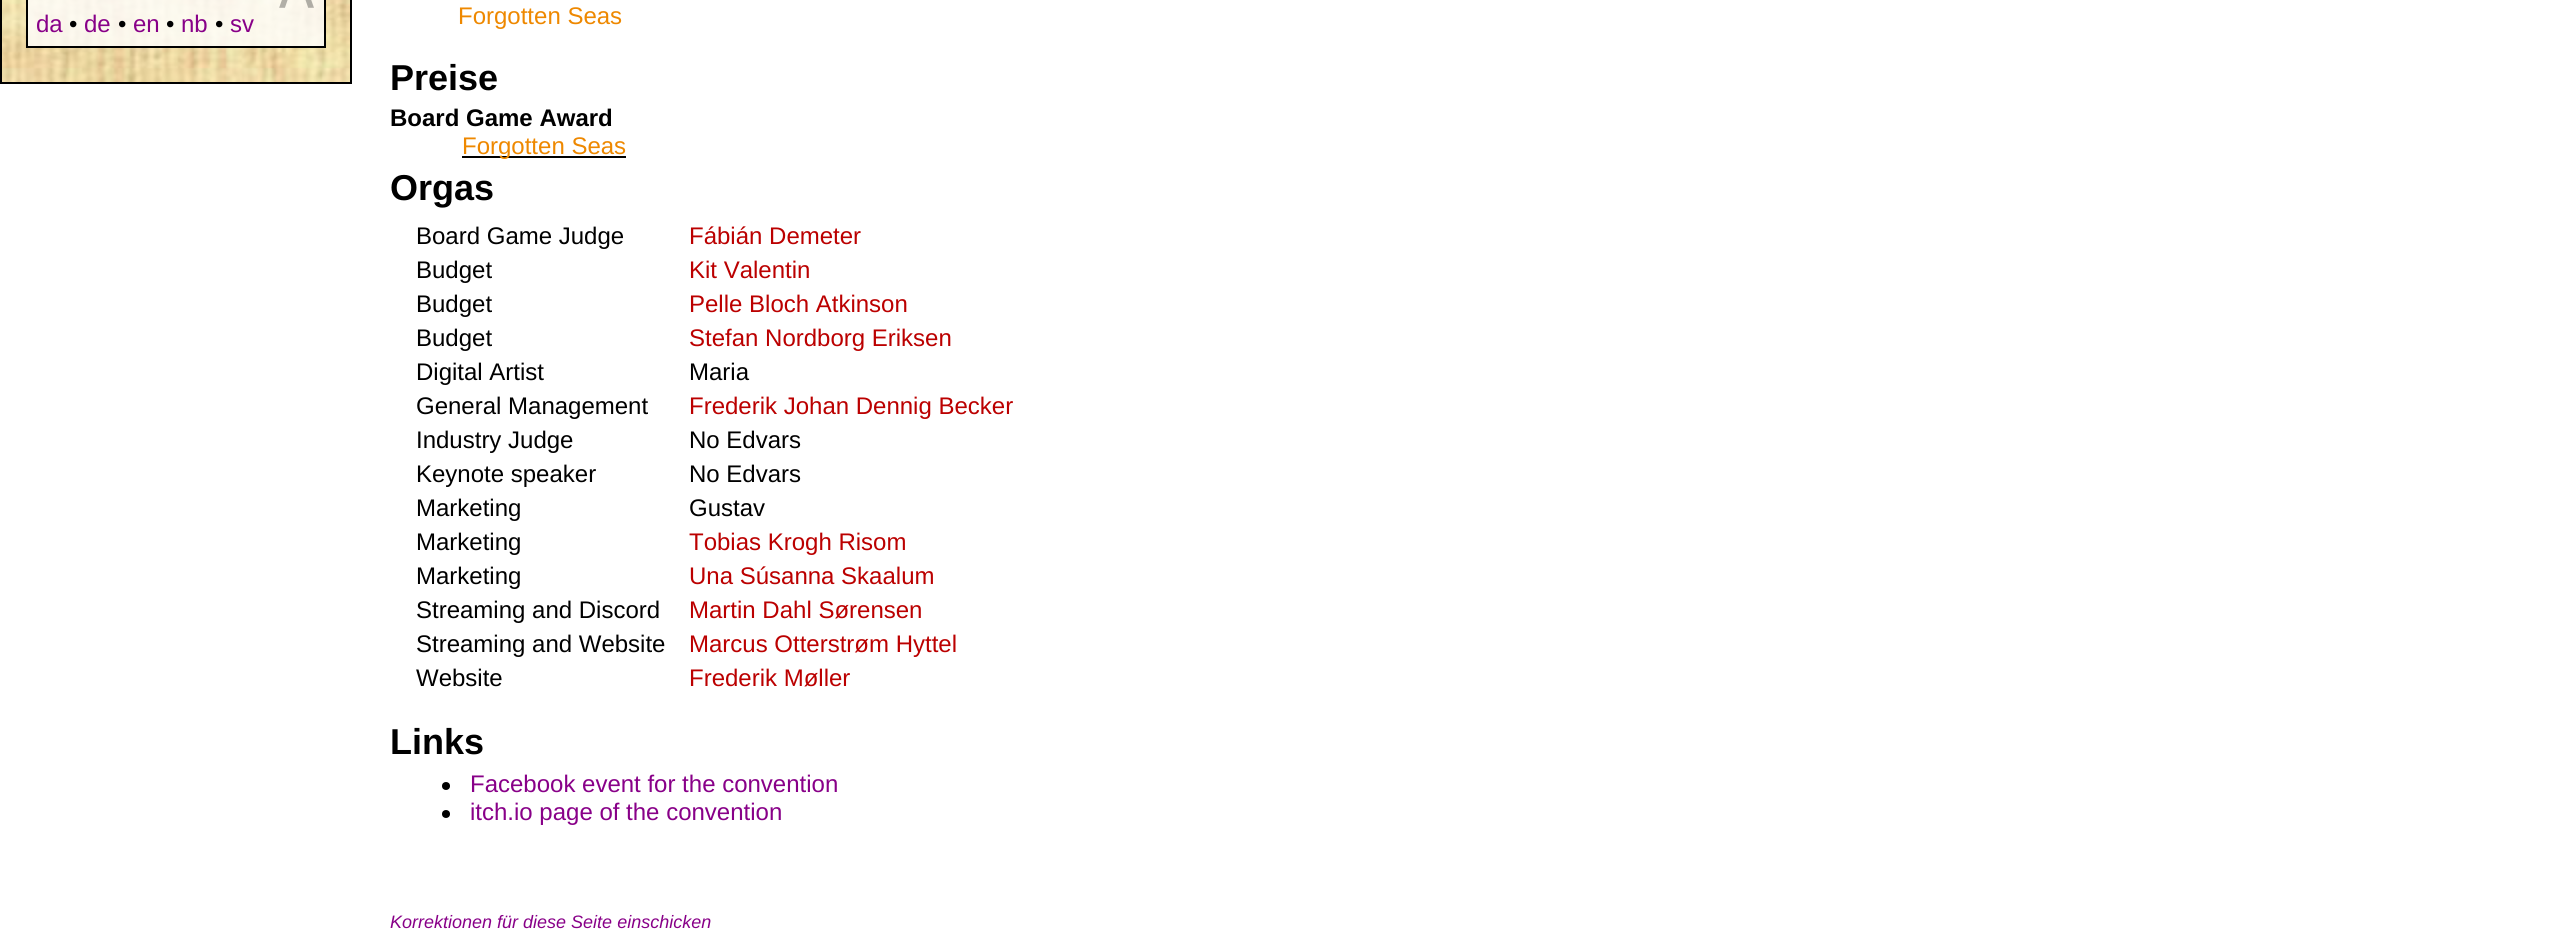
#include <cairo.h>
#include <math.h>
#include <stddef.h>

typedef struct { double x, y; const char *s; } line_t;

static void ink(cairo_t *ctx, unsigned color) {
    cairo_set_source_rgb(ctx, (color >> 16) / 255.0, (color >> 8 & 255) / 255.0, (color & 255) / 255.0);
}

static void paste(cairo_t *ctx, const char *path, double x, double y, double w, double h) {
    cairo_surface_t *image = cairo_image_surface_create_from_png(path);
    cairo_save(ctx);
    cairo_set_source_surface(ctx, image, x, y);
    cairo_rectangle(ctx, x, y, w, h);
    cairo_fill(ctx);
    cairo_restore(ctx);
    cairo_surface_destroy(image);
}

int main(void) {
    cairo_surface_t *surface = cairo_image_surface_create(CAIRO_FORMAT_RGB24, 2571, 933);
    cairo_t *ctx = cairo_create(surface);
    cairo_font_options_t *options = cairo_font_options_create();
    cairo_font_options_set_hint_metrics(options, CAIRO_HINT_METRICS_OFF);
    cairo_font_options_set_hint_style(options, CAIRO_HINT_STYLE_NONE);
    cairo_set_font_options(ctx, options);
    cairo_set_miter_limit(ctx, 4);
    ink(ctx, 0xFFFFFF);
    cairo_paint(ctx);
    paste(ctx, "media/1.png", 2, 0, 348, 82);
    cairo_rectangle(ctx, 1, -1, 350, 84);
    ink(ctx, 0x000000);
    cairo_stroke(ctx);
    cairo_set_source_rgba(ctx, 1, 1, 1, 0.8);
    cairo_rectangle(ctx, 27, -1, 298, 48);
    cairo_fill_preserve(ctx);
    ink(ctx, 0x000000);
    cairo_stroke(ctx);
    paste(ctx, "media/2.png", 279, 0, 35, 8);
    cairo_select_font_face(ctx, "Liberation Sans", CAIRO_FONT_SLANT_NORMAL, CAIRO_FONT_WEIGHT_NORMAL);
    cairo_set_font_size(ctx, 24);
    ink(ctx, 0x880088);
    cairo_move_to(ctx, 36, 32);
    cairo_show_text(ctx, "da");
    ink(ctx, 0x000000);
    cairo_move_to(ctx, 69, 32);
    cairo_show_text(ctx, "•");
    ink(ctx, 0x880088);
    cairo_move_to(ctx, 84, 32);
    cairo_show_text(ctx, "de");
    ink(ctx, 0x000000);
    cairo_move_to(ctx, 118, 32);
    cairo_show_text(ctx, "•");
    ink(ctx, 0x880088);
    cairo_move_to(ctx, 133, 32);
    cairo_show_text(ctx, "en");
    ink(ctx, 0x000000);
    cairo_move_to(ctx, 166, 32);
    cairo_show_text(ctx, "•");
    ink(ctx, 0x880088);
    cairo_move_to(ctx, 181, 32);
    cairo_show_text(ctx, "nb");
    ink(ctx, 0x000000);
    cairo_move_to(ctx, 215, 32);
    cairo_show_text(ctx, "•");
    ink(ctx, 0x880088);
    cairo_move_to(ctx, 230, 32);
    cairo_show_text(ctx, "sv");
    ink(ctx, 0xEE8800);
    cairo_move_to(ctx, 458, 24);
    cairo_show_text(ctx, "Forgotten Seas");
    cairo_select_font_face(ctx, "Liberation Sans", CAIRO_FONT_SLANT_NORMAL, CAIRO_FONT_WEIGHT_BOLD);
    cairo_set_font_size(ctx, 36);
    ink(ctx, 0x000000);
    cairo_move_to(ctx, 390, 90);
    cairo_show_text(ctx, "Preise");
    cairo_set_font_size(ctx, 24);
    cairo_move_to(ctx, 390, 126);
    cairo_show_text(ctx, "Board Game Award");
    cairo_rectangle(ctx, 462, 156, 164, 2);
    cairo_fill(ctx);
    cairo_select_font_face(ctx, "Liberation Sans", CAIRO_FONT_SLANT_NORMAL, CAIRO_FONT_WEIGHT_NORMAL);
    ink(ctx, 0xEE8800);
    cairo_move_to(ctx, 462, 154);
    cairo_show_text(ctx, "Forgotten Seas");
    cairo_select_font_face(ctx, "Liberation Sans", CAIRO_FONT_SLANT_NORMAL, CAIRO_FONT_WEIGHT_BOLD);
    cairo_set_font_size(ctx, 36);
    ink(ctx, 0x000000);
    cairo_move_to(ctx, 390, 200);
    cairo_show_text(ctx, "Orgas");
    cairo_select_font_face(ctx, "Liberation Sans", CAIRO_FONT_SLANT_NORMAL, CAIRO_FONT_WEIGHT_NORMAL);
    cairo_set_font_size(ctx, 24);
    cairo_move_to(ctx, 416, 244);
    cairo_show_text(ctx, "Board Game Judge");
    ink(ctx, 0xBB0000);
    cairo_move_to(ctx, 689, 244);
    cairo_show_text(ctx, "Fábián Demeter");
    ink(ctx, 0x000000);
    cairo_move_to(ctx, 416, 278);
    cairo_show_text(ctx, "Budget");
    ink(ctx, 0xBB0000);
    cairo_move_to(ctx, 689, 278);
    cairo_show_text(ctx, "Kit Valentin");
    ink(ctx, 0x000000);
    cairo_move_to(ctx, 416, 312);
    cairo_show_text(ctx, "Budget");
    ink(ctx, 0xBB0000);
    cairo_move_to(ctx, 689, 312);
    cairo_show_text(ctx, "Pelle Bloch Atkinson");
    ink(ctx, 0x000000);
    cairo_move_to(ctx, 416, 346);
    cairo_show_text(ctx, "Budget");
    ink(ctx, 0xBB0000);
    cairo_move_to(ctx, 689, 346);
    cairo_show_text(ctx, "Stefan Nordborg Eriksen");
    ink(ctx, 0x000000);
    {
        static const line_t items[] = {
            {416, 380, "Digital Artist"},
            {689, 380, "Maria"},
            {416, 414, "General Management"},
        };
        for (size_t i = 0; i < sizeof items / sizeof *items; i++) {
            cairo_move_to(ctx, items[i].x, items[i].y);
            cairo_show_text(ctx, items[i].s);
        }
    }
    ink(ctx, 0xBB0000);
    cairo_move_to(ctx, 689, 414);
    cairo_show_text(ctx, "Frederik Johan Dennig Becker");
    ink(ctx, 0x000000);
    {
        static const line_t items[] = {
            {416, 448, "Industry Judge"},
            {689, 448, "No Edvars"},
            {416, 482, "Keynote speaker"},
            {689, 482, "No Edvars"},
            {416, 516, "Marketing"},
            {689, 516, "Gustav"},
            {416, 550, "Marketing"},
        };
        for (size_t i = 0; i < sizeof items / sizeof *items; i++) {
            cairo_move_to(ctx, items[i].x, items[i].y);
            cairo_show_text(ctx, items[i].s);
        }
    }
    ink(ctx, 0xBB0000);
    cairo_move_to(ctx, 689, 550);
    cairo_show_text(ctx, "Tobias Krogh Risom");
    ink(ctx, 0x000000);
    cairo_move_to(ctx, 416, 584);
    cairo_show_text(ctx, "Marketing");
    ink(ctx, 0xBB0000);
    cairo_move_to(ctx, 689, 584);
    cairo_show_text(ctx, "Una Súsanna Skaalum");
    ink(ctx, 0x000000);
    cairo_move_to(ctx, 416, 618);
    cairo_show_text(ctx, "Streaming and Discord");
    ink(ctx, 0xBB0000);
    cairo_move_to(ctx, 689, 618);
    cairo_show_text(ctx, "Martin Dahl Sørensen");
    ink(ctx, 0x000000);
    cairo_move_to(ctx, 416, 652);
    cairo_show_text(ctx, "Streaming and Website");
    ink(ctx, 0xBB0000);
    cairo_move_to(ctx, 689, 652);
    cairo_show_text(ctx, "Marcus Otterstrøm Hyttel");
    ink(ctx, 0x000000);
    cairo_move_to(ctx, 416, 686);
    cairo_show_text(ctx, "Website");
    ink(ctx, 0xBB0000);
    cairo_move_to(ctx, 689, 686);
    cairo_show_text(ctx, "Frederik Møller");
    cairo_select_font_face(ctx, "Liberation Sans", CAIRO_FONT_SLANT_NORMAL, CAIRO_FONT_WEIGHT_BOLD);
    cairo_set_font_size(ctx, 36);
    ink(ctx, 0x000000);
    cairo_move_to(ctx, 390, 754);
    cairo_show_text(ctx, "Links");
    cairo_new_path(ctx);
    cairo_arc(ctx, 446, 786, 4, 0, 2 * M_PI);
    cairo_fill(ctx);
    cairo_select_font_face(ctx, "Liberation Sans", CAIRO_FONT_SLANT_NORMAL, CAIRO_FONT_WEIGHT_NORMAL);
    cairo_set_font_size(ctx, 24);
    ink(ctx, 0x880088);
    cairo_move_to(ctx, 470, 792);
    cairo_show_text(ctx, "Facebook event for the convention");
    ink(ctx, 0x000000);
    cairo_new_path(ctx);
    cairo_arc(ctx, 446, 814, 4, 0, 2 * M_PI);
    cairo_fill(ctx);
    ink(ctx, 0x880088);
    cairo_move_to(ctx, 470, 820);
    cairo_show_text(ctx, "itch.io page of the convention");
    cairo_select_font_face(ctx, "Liberation Sans", CAIRO_FONT_SLANT_ITALIC, CAIRO_FONT_WEIGHT_NORMAL);
    cairo_set_font_size(ctx, 18);
    cairo_move_to(ctx, 390, 928);
    cairo_show_text(ctx, "Korrektionen für diese Seite einschicken");
    cairo_surface_write_to_png(surface, "image.png");
    cairo_font_options_destroy(options);
    cairo_destroy(ctx);
    cairo_surface_destroy(surface);
    return 0;
}
